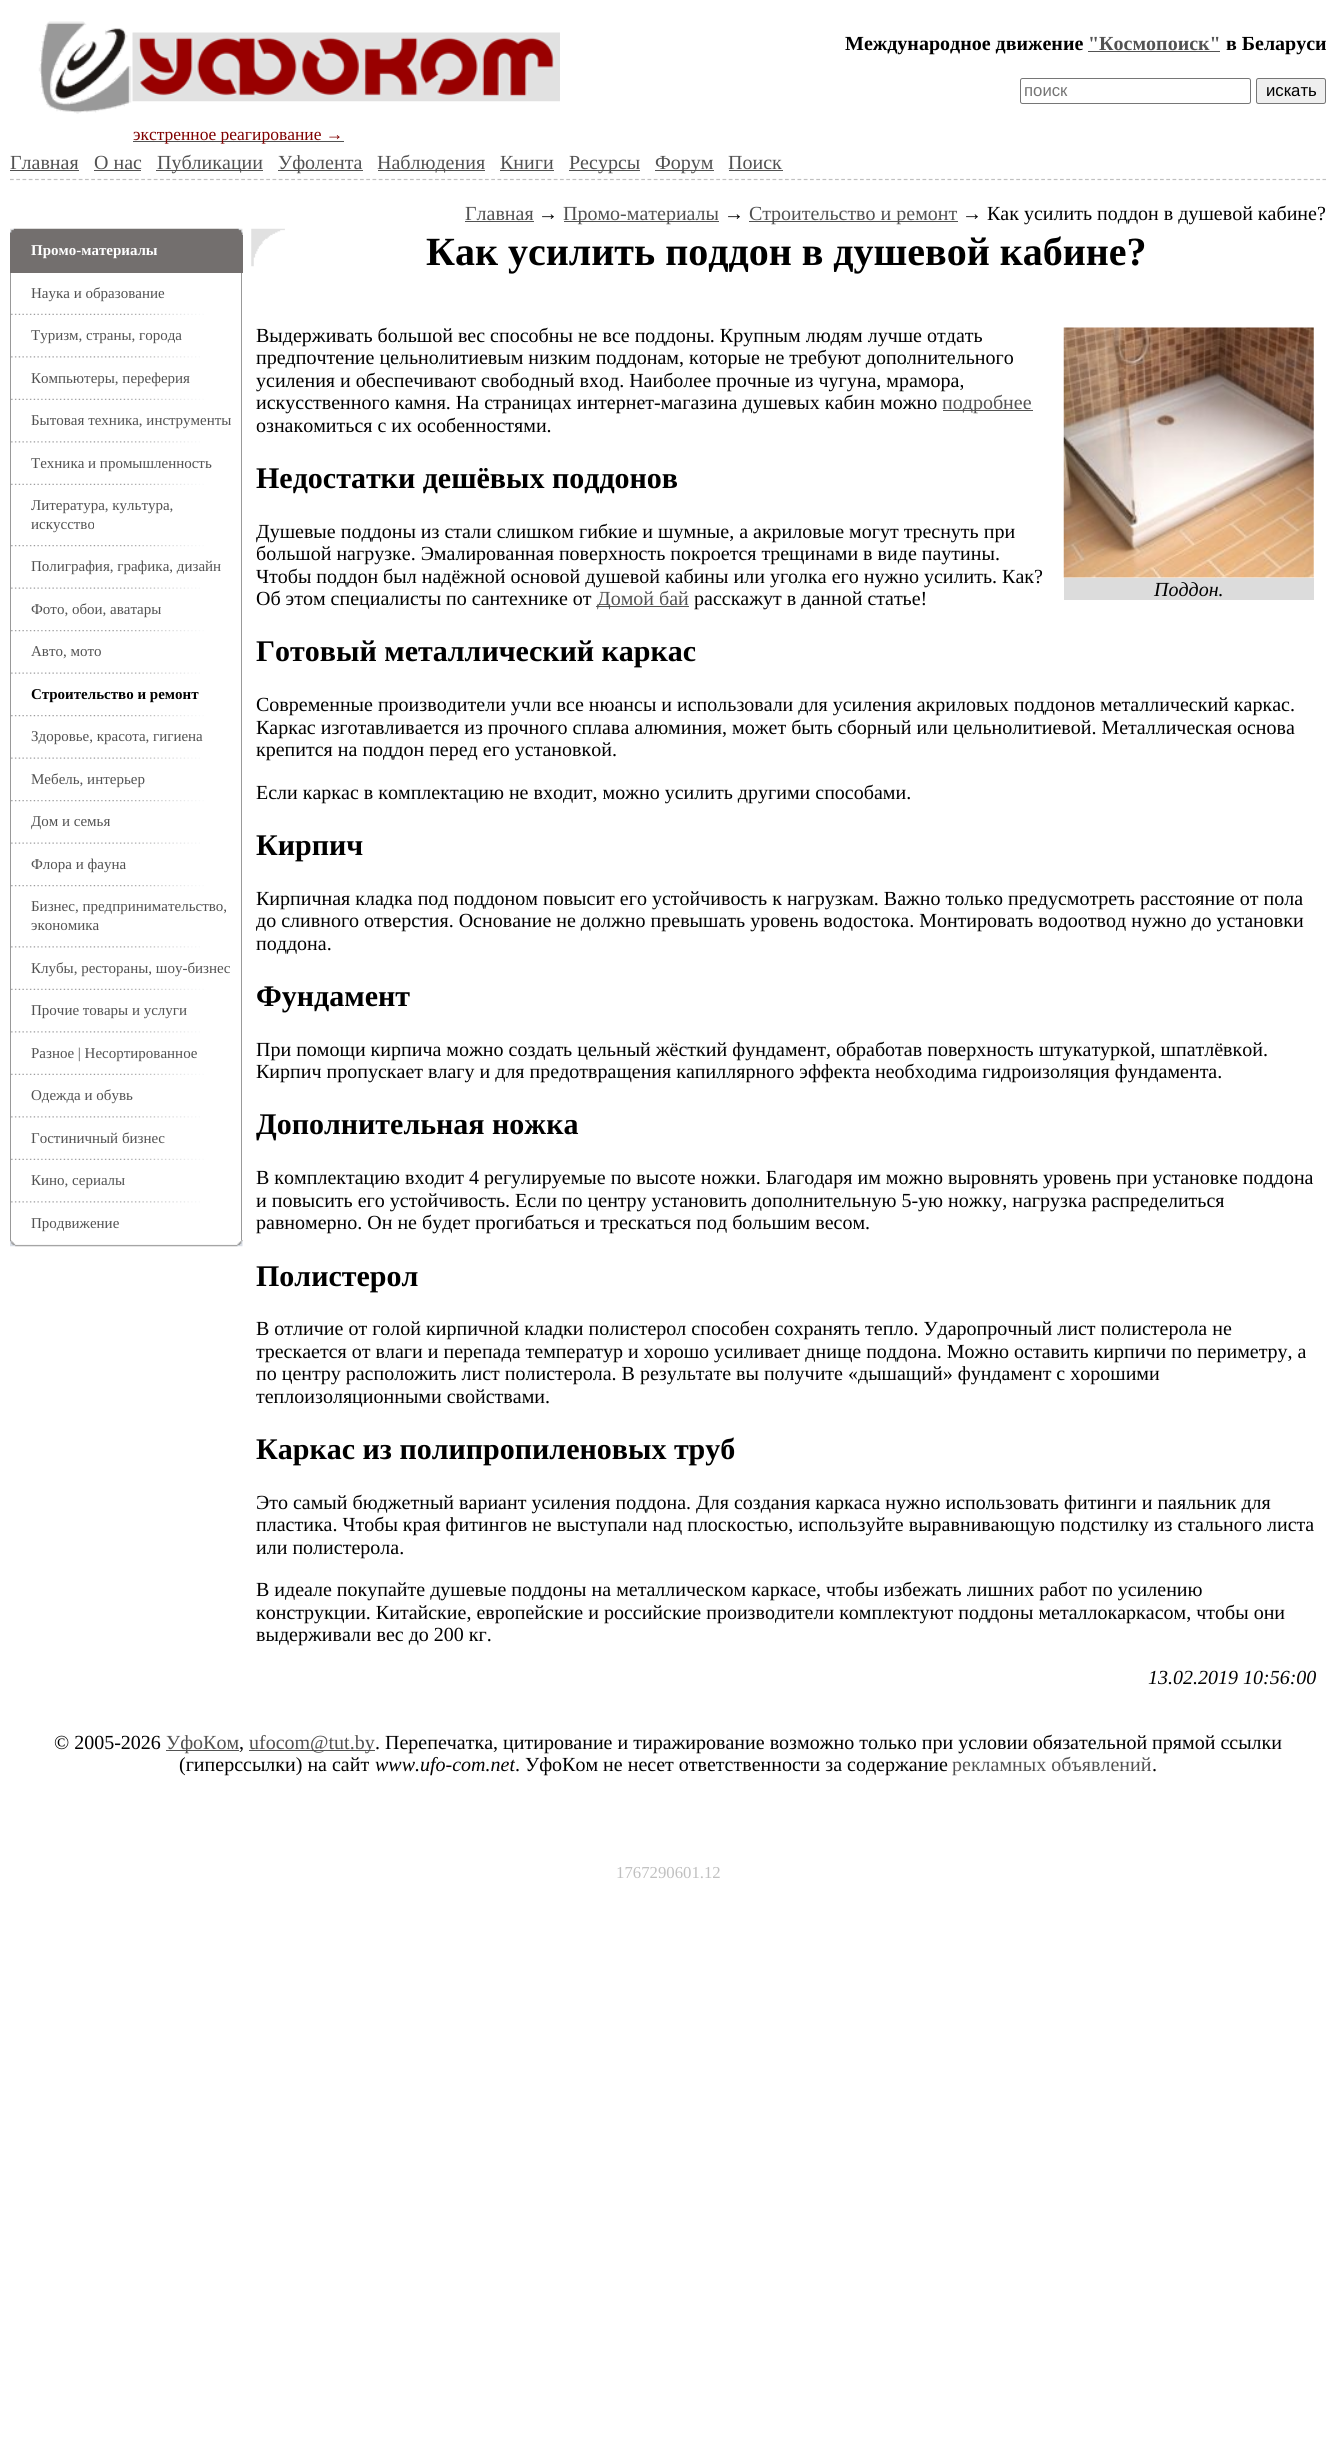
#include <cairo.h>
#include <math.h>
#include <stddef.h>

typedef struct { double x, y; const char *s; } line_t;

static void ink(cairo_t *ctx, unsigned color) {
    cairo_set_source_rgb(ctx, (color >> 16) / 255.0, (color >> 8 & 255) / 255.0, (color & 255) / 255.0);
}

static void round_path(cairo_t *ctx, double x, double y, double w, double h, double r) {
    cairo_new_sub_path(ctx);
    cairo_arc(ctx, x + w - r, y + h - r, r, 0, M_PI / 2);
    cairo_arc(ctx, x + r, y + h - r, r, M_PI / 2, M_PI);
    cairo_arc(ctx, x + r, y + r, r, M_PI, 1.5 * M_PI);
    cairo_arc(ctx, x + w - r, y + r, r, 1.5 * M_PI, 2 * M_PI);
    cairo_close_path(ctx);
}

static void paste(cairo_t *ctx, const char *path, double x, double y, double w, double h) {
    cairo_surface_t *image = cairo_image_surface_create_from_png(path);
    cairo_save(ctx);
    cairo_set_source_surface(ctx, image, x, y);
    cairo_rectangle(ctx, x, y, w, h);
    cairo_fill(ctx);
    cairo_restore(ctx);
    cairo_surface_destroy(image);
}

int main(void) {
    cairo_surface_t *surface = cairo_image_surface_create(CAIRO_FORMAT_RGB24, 1336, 2447);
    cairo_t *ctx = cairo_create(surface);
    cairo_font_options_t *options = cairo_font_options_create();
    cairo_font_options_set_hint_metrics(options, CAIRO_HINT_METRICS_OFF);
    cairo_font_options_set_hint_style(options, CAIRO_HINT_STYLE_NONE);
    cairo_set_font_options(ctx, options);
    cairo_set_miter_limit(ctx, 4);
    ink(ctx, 0xFFFFFF);
    cairo_paint(ctx);
    paste(ctx, "media/1.png", 38, 21, 94, 93);
    paste(ctx, "media/2.png", 132, 32, 428, 70);
    cairo_select_font_face(ctx, "Liberation Serif", CAIRO_FONT_SLANT_NORMAL, CAIRO_FONT_WEIGHT_BOLD);
    cairo_set_font_size(ctx, 20);
    ink(ctx, 0x000000);
    cairo_move_to(ctx, 845, 50);
    cairo_show_text(ctx, "Международное движение");
    ink(ctx, 0x525252);
    cairo_move_to(ctx, 1088, 50);
    cairo_show_text(ctx, "\"Космопоиск\"");
    cairo_rectangle(ctx, 1088, 51, 132, 1);
    cairo_fill(ctx);
    ink(ctx, 0x000000);
    cairo_move_to(ctx, 1226, 50);
    cairo_show_text(ctx, "в Беларуси");
    round_path(ctx, 1020.5, 78.5, 230, 25, 2);
    ink(ctx, 0x767676);
    cairo_set_line_width(ctx, 1);
    cairo_stroke(ctx);
    cairo_select_font_face(ctx, "Liberation Sans", CAIRO_FONT_SLANT_NORMAL, CAIRO_FONT_WEIGHT_NORMAL);
    cairo_set_font_size(ctx, 16.75);
    ink(ctx, 0x757575);
    cairo_move_to(ctx, 1024, 96);
    cairo_show_text(ctx, "поиск");
    ink(ctx, 0xEFEFEF);
    round_path(ctx, 1256.5, 78.5, 69, 25, 2);
    cairo_fill_preserve(ctx);
    ink(ctx, 0x767676);
    cairo_stroke(ctx);
    ink(ctx, 0x000000);
    cairo_move_to(ctx, 1266, 96);
    cairo_show_text(ctx, "искать");
    ink(ctx, 0x525252);
    cairo_rectangle(ctx, 133, 141, 211, 1);
    cairo_fill(ctx);
    cairo_select_font_face(ctx, "Liberation Serif", CAIRO_FONT_SLANT_NORMAL, CAIRO_FONT_WEIGHT_NORMAL);
    cairo_set_font_size(ctx, 17.5);
    ink(ctx, 0x800000);
    cairo_move_to(ctx, 133, 140);
    cairo_show_text(ctx, "экстренное реагирование →");
    cairo_new_path(ctx);
    cairo_move_to(ctx, 10, 179.5);
    cairo_line_to(ctx, 1326, 179.5);
    ink(ctx, 0xC0C0C0);
    cairo_set_line_width(ctx, 1.2);
    cairo_set_dash(ctx, (double[]){3.75, 2.5}, 2, 0);
    cairo_stroke(ctx);
    cairo_set_font_size(ctx, 20);
    ink(ctx, 0x525252);
    cairo_move_to(ctx, 10, 169);
    cairo_show_text(ctx, "Главная");
    cairo_rectangle(ctx, 10, 170, 69, 1);
    cairo_fill(ctx);
    cairo_move_to(ctx, 94, 169);
    cairo_show_text(ctx, "О нас");
    cairo_rectangle(ctx, 94, 170, 47, 1);
    cairo_fill(ctx);
    cairo_rectangle(ctx, 156, 170, 107, 1);
    cairo_fill(ctx);
    cairo_move_to(ctx, 157, 169);
    cairo_show_text(ctx, "Публикации");
    cairo_rectangle(ctx, 278, 170, 85, 1);
    cairo_fill(ctx);
    cairo_move_to(ctx, 278, 169);
    cairo_show_text(ctx, "Уфолента");
    cairo_rectangle(ctx, 378, 170, 107, 1);
    cairo_fill(ctx);
    cairo_move_to(ctx, 377, 169);
    cairo_show_text(ctx, "Наблюдения");
    cairo_move_to(ctx, 500, 169);
    cairo_show_text(ctx, "Книги");
    cairo_rectangle(ctx, 500, 170, 54, 1);
    cairo_fill(ctx);
    cairo_rectangle(ctx, 569, 170, 71, 1);
    cairo_fill(ctx);
    cairo_move_to(ctx, 569, 169);
    cairo_show_text(ctx, "Ресурсы");
    cairo_rectangle(ctx, 655, 170, 59, 1);
    cairo_fill(ctx);
    cairo_move_to(ctx, 655, 169);
    cairo_show_text(ctx, "Форум");
    cairo_move_to(ctx, 728, 169);
    cairo_show_text(ctx, "Поиск");
    cairo_rectangle(ctx, 729, 170, 54, 1);
    cairo_fill(ctx);
    cairo_move_to(ctx, 465, 220);
    cairo_show_text(ctx, "Главная");
    cairo_rectangle(ctx, 465, 221, 69, 1);
    cairo_fill(ctx);
    ink(ctx, 0x000000);
    cairo_move_to(ctx, 538, 220);
    cairo_show_text(ctx, "→");
    ink(ctx, 0x525252);
    cairo_rectangle(ctx, 564, 221, 155, 1);
    cairo_fill(ctx);
    cairo_move_to(ctx, 563, 220);
    cairo_show_text(ctx, "Промо-материалы");
    ink(ctx, 0x000000);
    cairo_move_to(ctx, 724, 220);
    cairo_show_text(ctx, "→");
    ink(ctx, 0x525252);
    cairo_rectangle(ctx, 749, 221, 209, 1);
    cairo_fill(ctx);
    cairo_move_to(ctx, 749, 220);
    cairo_show_text(ctx, "Строительство и ремонт");
    ink(ctx, 0x000000);
    cairo_move_to(ctx, 962, 220);
    cairo_show_text(ctx, "→ Как усилить поддон в душевой кабине?");
    paste(ctx, "media/3.png", 10, 228, 233, 7);
    paste(ctx, "media/4.png", 10, 1240, 233, 7);
    ink(ctx, 0x736F6E);
    cairo_rectangle(ctx, 10, 235, 233, 38);
    cairo_fill(ctx);
    cairo_select_font_face(ctx, "Liberation Serif", CAIRO_FONT_SLANT_NORMAL, CAIRO_FONT_WEIGHT_BOLD);
    cairo_set_font_size(ctx, 15);
    ink(ctx, 0xFFFFFF);
    cairo_move_to(ctx, 31, 255);
    cairo_show_text(ctx, "Промо-материалы");
    paste(ctx, "media/5.png", 11, 313, 193, 2);
    ink(ctx, 0x999999);
    cairo_rectangle(ctx, 241, 273, 1, 967);
    cairo_fill(ctx);
    cairo_rectangle(ctx, 10, 273, 1, 967);
    cairo_fill(ctx);
    cairo_select_font_face(ctx, "Liberation Serif", CAIRO_FONT_SLANT_NORMAL, CAIRO_FONT_WEIGHT_NORMAL);
    ink(ctx, 0x525252);
    cairo_move_to(ctx, 31, 298);
    cairo_show_text(ctx, "Наука и образование");
    paste(ctx, "media/6.png", 11, 356, 189, 2);
    cairo_move_to(ctx, 31, 340);
    cairo_show_text(ctx, "Туризм, страны, города");
    paste(ctx, "media/5.png", 11, 398, 193, 2);
    cairo_move_to(ctx, 31, 383);
    cairo_show_text(ctx, "Компьютеры, переферия");
    paste(ctx, "media/6.png", 11, 441, 189, 2);
    cairo_move_to(ctx, 31, 425);
    cairo_show_text(ctx, "Бытовая техника, инструменты");
    paste(ctx, "media/5.png", 11, 483, 193, 2);
    cairo_move_to(ctx, 31, 468);
    cairo_show_text(ctx, "Техника и промышленность");
    paste(ctx, "media/7.png", 11, 545, 193, 2);
    cairo_move_to(ctx, 31, 510);
    cairo_show_text(ctx, "Литература, культура,");
    cairo_move_to(ctx, 31, 529);
    cairo_show_text(ctx, "искусство");
    paste(ctx, "media/8.png", 11, 587, 189, 2);
    cairo_move_to(ctx, 31, 571);
    cairo_show_text(ctx, "Полиграфия, графика, дизайн");
    paste(ctx, "media/7.png", 11, 630, 193, 2);
    cairo_move_to(ctx, 31, 614);
    cairo_show_text(ctx, "Фото, обои, аватары");
    paste(ctx, "media/8.png", 11, 672, 189, 2);
    cairo_move_to(ctx, 31, 656);
    cairo_show_text(ctx, "Авто, мото");
    paste(ctx, "media/7.png", 11, 715, 193, 2);
    cairo_select_font_face(ctx, "Liberation Serif", CAIRO_FONT_SLANT_NORMAL, CAIRO_FONT_WEIGHT_BOLD);
    ink(ctx, 0x000000);
    cairo_move_to(ctx, 31, 699);
    cairo_show_text(ctx, "Строительство и ремонт");
    paste(ctx, "media/8.png", 11, 757, 189, 2);
    cairo_select_font_face(ctx, "Liberation Serif", CAIRO_FONT_SLANT_NORMAL, CAIRO_FONT_WEIGHT_NORMAL);
    ink(ctx, 0x525252);
    cairo_move_to(ctx, 31, 741);
    cairo_show_text(ctx, "Здоровье, красота, гигиена");
    paste(ctx, "media/7.png", 11, 800, 193, 2);
    cairo_move_to(ctx, 31, 784);
    cairo_show_text(ctx, "Мебель, интерьер");
    paste(ctx, "media/8.png", 11, 842, 189, 2);
    cairo_move_to(ctx, 31, 826);
    cairo_show_text(ctx, "Дом и семья");
    paste(ctx, "media/7.png", 11, 885, 193, 2);
    cairo_move_to(ctx, 31, 869);
    cairo_show_text(ctx, "Флора и фауна");
    paste(ctx, "media/6.png", 11, 946, 189, 2);
    cairo_move_to(ctx, 31, 911);
    cairo_show_text(ctx, "Бизнес, предпринимательство,");
    cairo_move_to(ctx, 31, 930);
    cairo_show_text(ctx, "экономика");
    paste(ctx, "media/5.png", 11, 988, 193, 2);
    cairo_move_to(ctx, 31, 973);
    cairo_show_text(ctx, "Клубы, рестораны, шоу-бизнес");
    paste(ctx, "media/6.png", 11, 1031, 189, 2);
    cairo_move_to(ctx, 31, 1015);
    cairo_show_text(ctx, "Прочие товары и услуги");
    paste(ctx, "media/5.png", 11, 1073, 193, 2);
    cairo_move_to(ctx, 31, 1058);
    cairo_show_text(ctx, "Разное | Несортированное");
    paste(ctx, "media/6.png", 11, 1116, 189, 2);
    cairo_move_to(ctx, 31, 1100);
    cairo_show_text(ctx, "Одежда и обувь");
    paste(ctx, "media/5.png", 11, 1158, 193, 2);
    cairo_move_to(ctx, 31, 1143);
    cairo_show_text(ctx, "Гостиничный бизнес");
    paste(ctx, "media/6.png", 11, 1201, 189, 2);
    cairo_move_to(ctx, 31, 1185);
    cairo_show_text(ctx, "Кино, сериалы");
    cairo_move_to(ctx, 31, 1228);
    cairo_show_text(ctx, "Продвижение");
    paste(ctx, "media/9.png", 251, 228, 34, 39);
    cairo_select_font_face(ctx, "Liberation Serif", CAIRO_FONT_SLANT_NORMAL, CAIRO_FONT_WEIGHT_BOLD);
    cairo_set_font_size(ctx, 40);
    ink(ctx, 0x000000);
    cairo_move_to(ctx, 426, 265);
    cairo_show_text(ctx, "Как усилить поддон в душевой кабине?");
    cairo_select_font_face(ctx, "Liberation Serif", CAIRO_FONT_SLANT_NORMAL, CAIRO_FONT_WEIGHT_NORMAL);
    cairo_set_font_size(ctx, 20);
    {
        static const line_t items[] = {
            {256, 342, "Выдерживать большой вес способны не все поддоны. Крупным людям лучше отдать"},
            {256, 364, "предпочтение цельнолитиевым низким поддонам, которые не требуют дополнительного"},
            {256, 387, "усиления и обеспечивают свободный вход. Наиболее прочные из чугуна, мрамора,"},
            {256, 409, "искусственного камня. На страницах интернет-магазина душевых кабин можно"},
        };
        for (size_t i = 0; i < sizeof items / sizeof *items; i++) {
            cairo_move_to(ctx, items[i].x, items[i].y);
            cairo_show_text(ctx, items[i].s);
        }
    }
    ink(ctx, 0x525252);
    cairo_rectangle(ctx, 943, 410, 90, 1);
    cairo_fill(ctx);
    cairo_move_to(ctx, 942, 409);
    cairo_show_text(ctx, "подробнее");
    ink(ctx, 0x000000);
    cairo_move_to(ctx, 256, 432);
    cairo_show_text(ctx, "ознакомиться с их особенностями.");
    cairo_select_font_face(ctx, "Liberation Serif", CAIRO_FONT_SLANT_NORMAL, CAIRO_FONT_WEIGHT_BOLD);
    cairo_set_font_size(ctx, 30);
    cairo_move_to(ctx, 256, 488);
    cairo_show_text(ctx, "Недостатки дешёвых поддонов");
    cairo_select_font_face(ctx, "Liberation Serif", CAIRO_FONT_SLANT_NORMAL, CAIRO_FONT_WEIGHT_NORMAL);
    cairo_set_font_size(ctx, 20);
    {
        static const line_t items[] = {
            {256, 538, "Душевые поддоны из стали слишком гибкие и шумные, а акриловые могут треснуть при"},
            {256, 560, "большой нагрузке. Эмалированная поверхность покроется трещинами в виде паутины."},
            {256, 583, "Чтобы поддон был надёжной основой душевой кабины или уголка его нужно усилить. Как?"},
            {256, 605, "Об этом специалисты по сантехнике от"},
        };
        for (size_t i = 0; i < sizeof items / sizeof *items; i++) {
            cairo_move_to(ctx, items[i].x, items[i].y);
            cairo_show_text(ctx, items[i].s);
        }
    }
    ink(ctx, 0x525252);
    cairo_rectangle(ctx, 596, 606, 93, 1);
    cairo_fill(ctx);
    cairo_move_to(ctx, 597, 605);
    cairo_show_text(ctx, "Домой бай");
    ink(ctx, 0x000000);
    cairo_move_to(ctx, 694, 605);
    cairo_show_text(ctx, "расскажут в данной статье!");
    cairo_select_font_face(ctx, "Liberation Serif", CAIRO_FONT_SLANT_NORMAL, CAIRO_FONT_WEIGHT_BOLD);
    cairo_set_font_size(ctx, 30);
    cairo_move_to(ctx, 256, 661);
    cairo_show_text(ctx, "Готовый металлический каркас");
    cairo_select_font_face(ctx, "Liberation Serif", CAIRO_FONT_SLANT_NORMAL, CAIRO_FONT_WEIGHT_NORMAL);
    cairo_set_font_size(ctx, 20);
    {
        static const line_t items[] = {
            {256, 711, "Современные производители учли все нюансы и использовали для усиления акриловых поддонов металлический каркас."},
            {256, 734, "Каркас изготавливается из прочного сплава алюминия, может быть сборный или цельнолитиевой. Металлическая основа"},
            {256, 756, "крепится на поддон перед его установкой."},
            {256, 799, "Если каркас в комплектацию не входит, можно усилить другими способами."},
        };
        for (size_t i = 0; i < sizeof items / sizeof *items; i++) {
            cairo_move_to(ctx, items[i].x, items[i].y);
            cairo_show_text(ctx, items[i].s);
        }
    }
    cairo_select_font_face(ctx, "Liberation Serif", CAIRO_FONT_SLANT_NORMAL, CAIRO_FONT_WEIGHT_BOLD);
    cairo_set_font_size(ctx, 30);
    cairo_move_to(ctx, 256, 855);
    cairo_show_text(ctx, "Кирпич");
    cairo_select_font_face(ctx, "Liberation Serif", CAIRO_FONT_SLANT_NORMAL, CAIRO_FONT_WEIGHT_NORMAL);
    cairo_set_font_size(ctx, 20);
    {
        static const line_t items[] = {
            {256, 905, "Кирпичная кладка под поддоном повысит его устойчивость к нагрузкам. Важно только предусмотреть расстояние от пола"},
            {256, 927, "до сливного отверстия. Основание не должно превышать уровень водостока. Монтировать водоотвод нужно до установки"},
            {256, 950, "поддона."},
        };
        for (size_t i = 0; i < sizeof items / sizeof *items; i++) {
            cairo_move_to(ctx, items[i].x, items[i].y);
            cairo_show_text(ctx, items[i].s);
        }
    }
    cairo_select_font_face(ctx, "Liberation Serif", CAIRO_FONT_SLANT_NORMAL, CAIRO_FONT_WEIGHT_BOLD);
    cairo_set_font_size(ctx, 30);
    cairo_move_to(ctx, 256, 1006);
    cairo_show_text(ctx, "Фундамент");
    cairo_select_font_face(ctx, "Liberation Serif", CAIRO_FONT_SLANT_NORMAL, CAIRO_FONT_WEIGHT_NORMAL);
    cairo_set_font_size(ctx, 20);
    cairo_move_to(ctx, 256, 1056);
    cairo_show_text(ctx, "При помощи кирпича можно создать цельный жёсткий фундамент, обработав поверхность штукатуркой, шпатлёвкой.");
    cairo_move_to(ctx, 256, 1078);
    cairo_show_text(ctx, "Кирпич пропускает влагу и для предотвращения капиллярного эффекта необходима гидроизоляция фундамента.");
    cairo_select_font_face(ctx, "Liberation Serif", CAIRO_FONT_SLANT_NORMAL, CAIRO_FONT_WEIGHT_BOLD);
    cairo_set_font_size(ctx, 30);
    cairo_move_to(ctx, 256, 1134);
    cairo_show_text(ctx, "Дополнительная ножка");
    cairo_select_font_face(ctx, "Liberation Serif", CAIRO_FONT_SLANT_NORMAL, CAIRO_FONT_WEIGHT_NORMAL);
    cairo_set_font_size(ctx, 20);
    {
        static const line_t items[] = {
            {256, 1184, "В комплектацию входит 4 регулируемые по высоте ножки. Благодаря им можно выровнять уровень при установке поддона"},
            {256, 1207, "и повысить его устойчивость. Если по центру установить дополнительную 5-ую ножку, нагрузка распределиться"},
            {256, 1229, "равномерно. Он не будет прогибаться и трескаться под большим весом."},
        };
        for (size_t i = 0; i < sizeof items / sizeof *items; i++) {
            cairo_move_to(ctx, items[i].x, items[i].y);
            cairo_show_text(ctx, items[i].s);
        }
    }
    cairo_select_font_face(ctx, "Liberation Serif", CAIRO_FONT_SLANT_NORMAL, CAIRO_FONT_WEIGHT_BOLD);
    cairo_set_font_size(ctx, 30);
    cairo_move_to(ctx, 256, 1286);
    cairo_show_text(ctx, "Полистерол");
    cairo_select_font_face(ctx, "Liberation Serif", CAIRO_FONT_SLANT_NORMAL, CAIRO_FONT_WEIGHT_NORMAL);
    cairo_set_font_size(ctx, 20);
    {
        static const line_t items[] = {
            {256, 1335, "В отличие от голой кирпичной кладки полистерол способен сохранять тепло. Ударопрочный лист полистерола не"},
            {256, 1358, "трескается от влаги и перепада температур и хорошо усиливает днище поддона. Можно оставить кирпичи по периметру, а"},
            {256, 1380, "по центру расположить лист полистерола. В результате вы получите «дышащий» фундамент с хорошими"},
            {256, 1403, "теплоизоляционными свойствами."},
        };
        for (size_t i = 0; i < sizeof items / sizeof *items; i++) {
            cairo_move_to(ctx, items[i].x, items[i].y);
            cairo_show_text(ctx, items[i].s);
        }
    }
    cairo_select_font_face(ctx, "Liberation Serif", CAIRO_FONT_SLANT_NORMAL, CAIRO_FONT_WEIGHT_BOLD);
    cairo_set_font_size(ctx, 30);
    cairo_move_to(ctx, 256, 1459);
    cairo_show_text(ctx, "Каркас из полипропиленовых труб");
    cairo_select_font_face(ctx, "Liberation Serif", CAIRO_FONT_SLANT_NORMAL, CAIRO_FONT_WEIGHT_NORMAL);
    cairo_set_font_size(ctx, 20);
    {
        static const line_t items[] = {
            {256, 1509, "Это самый бюджетный вариант усиления поддона. Для создания каркаса нужно использовать фитинги и паяльник для"},
            {256, 1531, "пластика. Чтобы края фитингов не выступали над плоскостью, используйте выравнивающую подстилку из стального листа"},
            {256, 1554, "или полистерола."},
            {256, 1596, "В идеале покупайте душевые поддоны на металлическом каркасе, чтобы избежать лишних работ по усилению"},
            {256, 1619, "конструкции. Китайские, европейские и российские производители комплектуют поддоны металлокаркасом, чтобы они"},
            {256, 1641, "выдерживали вес до 200 кг."},
        };
        for (size_t i = 0; i < sizeof items / sizeof *items; i++) {
            cairo_move_to(ctx, items[i].x, items[i].y);
            cairo_show_text(ctx, items[i].s);
        }
    }
    cairo_select_font_face(ctx, "Liberation Serif", CAIRO_FONT_SLANT_ITALIC, CAIRO_FONT_WEIGHT_NORMAL);
    cairo_move_to(ctx, 1148, 1684);
    cairo_show_text(ctx, "13.02.2019 10:56:00");
    paste(ctx, "media/10.png", 1063, 327, 251, 251);
    ink(ctx, 0xDCDCDC);
    cairo_rectangle(ctx, 1064, 578, 250, 22);
    cairo_fill(ctx);
    ink(ctx, 0x000000);
    cairo_move_to(ctx, 1154, 596);
    cairo_show_text(ctx, "Поддон.");
    cairo_select_font_face(ctx, "Liberation Serif", CAIRO_FONT_SLANT_NORMAL, CAIRO_FONT_WEIGHT_NORMAL);
    cairo_move_to(ctx, 54, 1749);
    cairo_show_text(ctx, "© 2005-2026");
    ink(ctx, 0x525252);
    cairo_rectangle(ctx, 166, 1750, 73, 1);
    cairo_fill(ctx);
    cairo_move_to(ctx, 166, 1749);
    cairo_show_text(ctx, "УфоКом");
    ink(ctx, 0x000000);
    cairo_move_to(ctx, 239, 1749);
    cairo_show_text(ctx, ",");
    ink(ctx, 0x525252);
    cairo_rectangle(ctx, 249, 1750, 126, 1);
    cairo_fill(ctx);
    cairo_move_to(ctx, 249, 1749);
    cairo_show_text(ctx, "ufocom@tut.by");
    ink(ctx, 0x000000);
    cairo_move_to(ctx, 375, 1749);
    cairo_show_text(ctx, ". Перепечатка, цитирование и тиражирование возможно только при условии обязательной прямой ссылки");
    cairo_move_to(ctx, 179, 1771);
    cairo_show_text(ctx, "(гиперссылки) на сайт");
    cairo_select_font_face(ctx, "Liberation Serif", CAIRO_FONT_SLANT_ITALIC, CAIRO_FONT_WEIGHT_NORMAL);
    cairo_move_to(ctx, 375, 1771);
    cairo_show_text(ctx, "www.ufo-com.net");
    cairo_select_font_face(ctx, "Liberation Serif", CAIRO_FONT_SLANT_NORMAL, CAIRO_FONT_WEIGHT_NORMAL);
    cairo_move_to(ctx, 515, 1771);
    cairo_show_text(ctx, ". УфоКом не несет ответственности за содержание");
    ink(ctx, 0x525252);
    cairo_move_to(ctx, 952, 1771);
    cairo_show_text(ctx, "рекламных объявлений");
    ink(ctx, 0x000000);
    cairo_move_to(ctx, 1152, 1771);
    cairo_show_text(ctx, ".");
    cairo_set_font_size(ctx, 16.75);
    ink(ctx, 0xC0C0C0);
    cairo_move_to(ctx, 616, 1878);
    cairo_show_text(ctx, "1767290601.12");
    cairo_surface_write_to_png(surface, "image.png");
    cairo_font_options_destroy(options);
    cairo_destroy(ctx);
    cairo_surface_destroy(surface);
    return 0;
}
